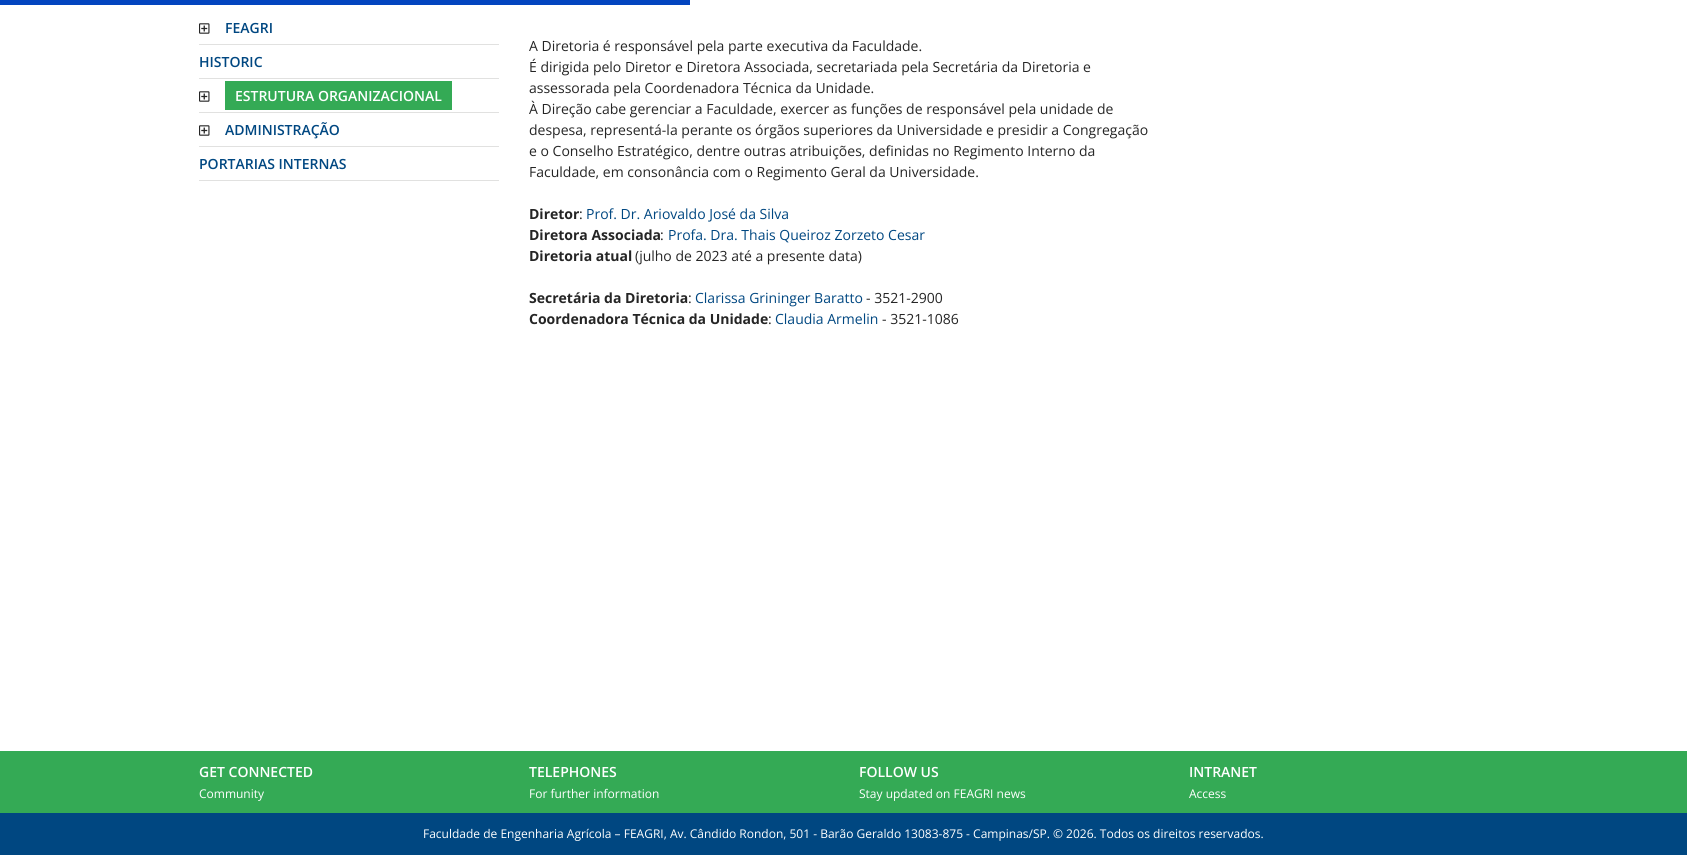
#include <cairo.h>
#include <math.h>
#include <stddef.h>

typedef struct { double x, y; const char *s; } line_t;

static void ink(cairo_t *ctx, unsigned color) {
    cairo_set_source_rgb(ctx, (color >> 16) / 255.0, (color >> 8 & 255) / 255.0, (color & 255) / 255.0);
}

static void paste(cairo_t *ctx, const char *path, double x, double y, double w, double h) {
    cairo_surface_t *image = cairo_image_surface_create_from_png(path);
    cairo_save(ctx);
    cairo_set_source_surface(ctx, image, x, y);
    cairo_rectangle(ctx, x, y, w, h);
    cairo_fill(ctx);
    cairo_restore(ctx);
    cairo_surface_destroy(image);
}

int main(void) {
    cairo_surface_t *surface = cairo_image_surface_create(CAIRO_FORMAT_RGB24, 1687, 855);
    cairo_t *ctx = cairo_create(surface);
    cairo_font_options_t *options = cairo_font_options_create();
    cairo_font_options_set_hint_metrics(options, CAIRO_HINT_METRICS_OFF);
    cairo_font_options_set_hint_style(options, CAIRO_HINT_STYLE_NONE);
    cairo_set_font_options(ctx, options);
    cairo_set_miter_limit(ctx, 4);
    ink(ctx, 0xFFFFFF);
    cairo_paint(ctx);
    ink(ctx, 0x0345BF);
    cairo_rectangle(ctx, 0, 0, 690, 5);
    cairo_fill(ctx);
    ink(ctx, 0xE1E1E0);
    cairo_rectangle(ctx, 199, 44, 300, 1);
    cairo_fill(ctx);
    paste(ctx, "media/1.png", 199, 23, 11, 11);
    cairo_select_font_face(ctx, "Open Sans SemiBold", CAIRO_FONT_SLANT_NORMAL, CAIRO_FONT_WEIGHT_NORMAL);
    cairo_set_font_size(ctx, 14);
    ink(ctx, 0x004781);
    cairo_move_to(ctx, 225, 33);
    cairo_show_text(ctx, "FEAGRI");
    ink(ctx, 0xE1E1E0);
    cairo_rectangle(ctx, 199, 78, 300, 1);
    cairo_fill(ctx);
    ink(ctx, 0x004781);
    cairo_move_to(ctx, 199, 67);
    cairo_show_text(ctx, "HISTORIC");
    ink(ctx, 0xE1E1E0);
    cairo_rectangle(ctx, 199, 112, 300, 1);
    cairo_fill(ctx);
    paste(ctx, "media/1.png", 199, 91, 11, 11);
    ink(ctx, 0x34AA55);
    cairo_rectangle(ctx, 225, 81, 227, 29);
    cairo_fill(ctx);
    ink(ctx, 0xFFFFFF);
    cairo_move_to(ctx, 235, 101);
    cairo_show_text(ctx, "ESTRUTURA ORGANIZACIONAL");
    ink(ctx, 0xE1E1E0);
    cairo_rectangle(ctx, 199, 146, 300, 1);
    cairo_fill(ctx);
    paste(ctx, "media/1.png", 199, 125, 11, 11);
    ink(ctx, 0x004781);
    cairo_move_to(ctx, 225, 135);
    cairo_show_text(ctx, "ADMINISTRAÇÃO");
    ink(ctx, 0xE1E1E0);
    cairo_rectangle(ctx, 199, 180, 300, 1);
    cairo_fill(ctx);
    ink(ctx, 0x004781);
    cairo_move_to(ctx, 199, 169);
    cairo_show_text(ctx, "PORTARIAS INTERNAS");
    cairo_select_font_face(ctx, "Open Sans", CAIRO_FONT_SLANT_NORMAL, CAIRO_FONT_WEIGHT_NORMAL);
    ink(ctx, 0x252525);
    {
        static const line_t items[] = {
            {529, 51, "A Diretoria é responsável pela parte executiva da Faculdade."},
            {529, 72, "É dirigida pelo Diretor e Diretora Associada, secretariada pela Secretária da Diretoria e"},
            {529, 93, "assessorada pela Coordenadora Técnica da Unidade."},
            {529, 114, "À Direção cabe gerenciar a Faculdade, exercer as funções de responsável pela unidade de"},
            {529, 135, "despesa, representá-la perante os órgãos superiores da Universidade e presidir a Congregação"},
            {529, 156, "e o Conselho Estratégico, dentre outras atribuições, definidas no Regimento Interno da"},
            {529, 177, "Faculdade, em consonância com o Regimento Geral da Universidade."},
        };
        for (size_t i = 0; i < sizeof items / sizeof *items; i++) {
            cairo_move_to(ctx, items[i].x, items[i].y);
            cairo_show_text(ctx, items[i].s);
        }
    }
    cairo_select_font_face(ctx, "Open Sans", CAIRO_FONT_SLANT_NORMAL, CAIRO_FONT_WEIGHT_BOLD);
    cairo_move_to(ctx, 529, 219);
    cairo_show_text(ctx, "Diretor");
    cairo_select_font_face(ctx, "Open Sans", CAIRO_FONT_SLANT_NORMAL, CAIRO_FONT_WEIGHT_NORMAL);
    cairo_move_to(ctx, 579, 219);
    cairo_show_text(ctx, ":");
    ink(ctx, 0x004781);
    cairo_move_to(ctx, 586, 219);
    cairo_show_text(ctx, "Prof. Dr. Ariovaldo José da Silva");
    cairo_select_font_face(ctx, "Open Sans", CAIRO_FONT_SLANT_NORMAL, CAIRO_FONT_WEIGHT_BOLD);
    ink(ctx, 0x252525);
    cairo_move_to(ctx, 529, 240);
    cairo_show_text(ctx, "Diretora Associada");
    cairo_select_font_face(ctx, "Open Sans", CAIRO_FONT_SLANT_NORMAL, CAIRO_FONT_WEIGHT_NORMAL);
    cairo_move_to(ctx, 660, 240);
    cairo_show_text(ctx, ":");
    ink(ctx, 0x004781);
    cairo_move_to(ctx, 668, 240);
    cairo_show_text(ctx, "Profa. Dra. Thais Queiroz Zorzeto Cesar");
    cairo_select_font_face(ctx, "Open Sans", CAIRO_FONT_SLANT_NORMAL, CAIRO_FONT_WEIGHT_BOLD);
    ink(ctx, 0x252525);
    cairo_move_to(ctx, 529, 261);
    cairo_show_text(ctx, "Diretoria atual");
    cairo_select_font_face(ctx, "Open Sans", CAIRO_FONT_SLANT_NORMAL, CAIRO_FONT_WEIGHT_NORMAL);
    cairo_move_to(ctx, 635, 261);
    cairo_show_text(ctx, "(julho de 2023 até a presente data)");
    cairo_select_font_face(ctx, "Open Sans", CAIRO_FONT_SLANT_NORMAL, CAIRO_FONT_WEIGHT_BOLD);
    cairo_move_to(ctx, 529, 303);
    cairo_show_text(ctx, "Secretária da Diretoria");
    cairo_select_font_face(ctx, "Open Sans", CAIRO_FONT_SLANT_NORMAL, CAIRO_FONT_WEIGHT_NORMAL);
    cairo_move_to(ctx, 688, 303);
    cairo_show_text(ctx, ":");
    ink(ctx, 0x004781);
    cairo_move_to(ctx, 695, 303);
    cairo_show_text(ctx, "Clarissa Grininger Baratto");
    ink(ctx, 0x252525);
    cairo_move_to(ctx, 866, 303);
    cairo_show_text(ctx, "- 3521-2900");
    cairo_select_font_face(ctx, "Open Sans", CAIRO_FONT_SLANT_NORMAL, CAIRO_FONT_WEIGHT_BOLD);
    cairo_move_to(ctx, 529, 324);
    cairo_show_text(ctx, "Coordenadora Técnica da Unidade");
    cairo_select_font_face(ctx, "Open Sans", CAIRO_FONT_SLANT_NORMAL, CAIRO_FONT_WEIGHT_NORMAL);
    cairo_move_to(ctx, 768, 324);
    cairo_show_text(ctx, ":");
    ink(ctx, 0x004781);
    cairo_move_to(ctx, 775, 324);
    cairo_show_text(ctx, "Claudia Armelin");
    ink(ctx, 0x252525);
    cairo_move_to(ctx, 882, 324);
    cairo_show_text(ctx, "- 3521-1086");
    ink(ctx, 0x34AA55);
    cairo_rectangle(ctx, 0, 751, 1687, 62);
    cairo_fill(ctx);
    cairo_select_font_face(ctx, "Open Sans SemiBold", CAIRO_FONT_SLANT_NORMAL, CAIRO_FONT_WEIGHT_NORMAL);
    ink(ctx, 0xFFFFFF);
    cairo_move_to(ctx, 199, 777);
    cairo_show_text(ctx, "GET CONNECTED");
    cairo_select_font_face(ctx, "Open Sans", CAIRO_FONT_SLANT_NORMAL, CAIRO_FONT_WEIGHT_NORMAL);
    cairo_set_font_size(ctx, 12);
    cairo_move_to(ctx, 199, 798);
    cairo_show_text(ctx, "Community");
    cairo_select_font_face(ctx, "Open Sans SemiBold", CAIRO_FONT_SLANT_NORMAL, CAIRO_FONT_WEIGHT_NORMAL);
    cairo_set_font_size(ctx, 14);
    cairo_move_to(ctx, 529, 777);
    cairo_show_text(ctx, "TELEPHONES");
    cairo_select_font_face(ctx, "Open Sans", CAIRO_FONT_SLANT_NORMAL, CAIRO_FONT_WEIGHT_NORMAL);
    cairo_set_font_size(ctx, 12);
    cairo_move_to(ctx, 529, 798);
    cairo_show_text(ctx, "For further information");
    cairo_select_font_face(ctx, "Open Sans SemiBold", CAIRO_FONT_SLANT_NORMAL, CAIRO_FONT_WEIGHT_NORMAL);
    cairo_set_font_size(ctx, 14);
    cairo_move_to(ctx, 859, 777);
    cairo_show_text(ctx, "FOLLOW US");
    cairo_select_font_face(ctx, "Open Sans", CAIRO_FONT_SLANT_NORMAL, CAIRO_FONT_WEIGHT_NORMAL);
    cairo_set_font_size(ctx, 12);
    cairo_move_to(ctx, 859, 798);
    cairo_show_text(ctx, "Stay updated on FEAGRI news");
    cairo_select_font_face(ctx, "Open Sans SemiBold", CAIRO_FONT_SLANT_NORMAL, CAIRO_FONT_WEIGHT_NORMAL);
    cairo_set_font_size(ctx, 14);
    cairo_move_to(ctx, 1189, 777);
    cairo_show_text(ctx, "INTRANET");
    cairo_select_font_face(ctx, "Open Sans", CAIRO_FONT_SLANT_NORMAL, CAIRO_FONT_WEIGHT_NORMAL);
    cairo_set_font_size(ctx, 12);
    cairo_move_to(ctx, 1189, 798);
    cairo_show_text(ctx, "Access");
    ink(ctx, 0x004781);
    cairo_rectangle(ctx, 0, 813, 1687, 42);
    cairo_fill(ctx);
    ink(ctx, 0xFFFFFF);
    cairo_move_to(ctx, 423, 838);
    cairo_show_text(ctx, "Faculdade de Engenharia Agrícola – FEAGRI, Av. Cândido Rondon, 501 - Barão Geraldo 13083-875 - Campinas/SP. © 2026. Todos os direitos reservados.");
    cairo_surface_write_to_png(surface, "image.png");
    cairo_font_options_destroy(options);
    cairo_destroy(ctx);
    cairo_surface_destroy(surface);
    return 0;
}
